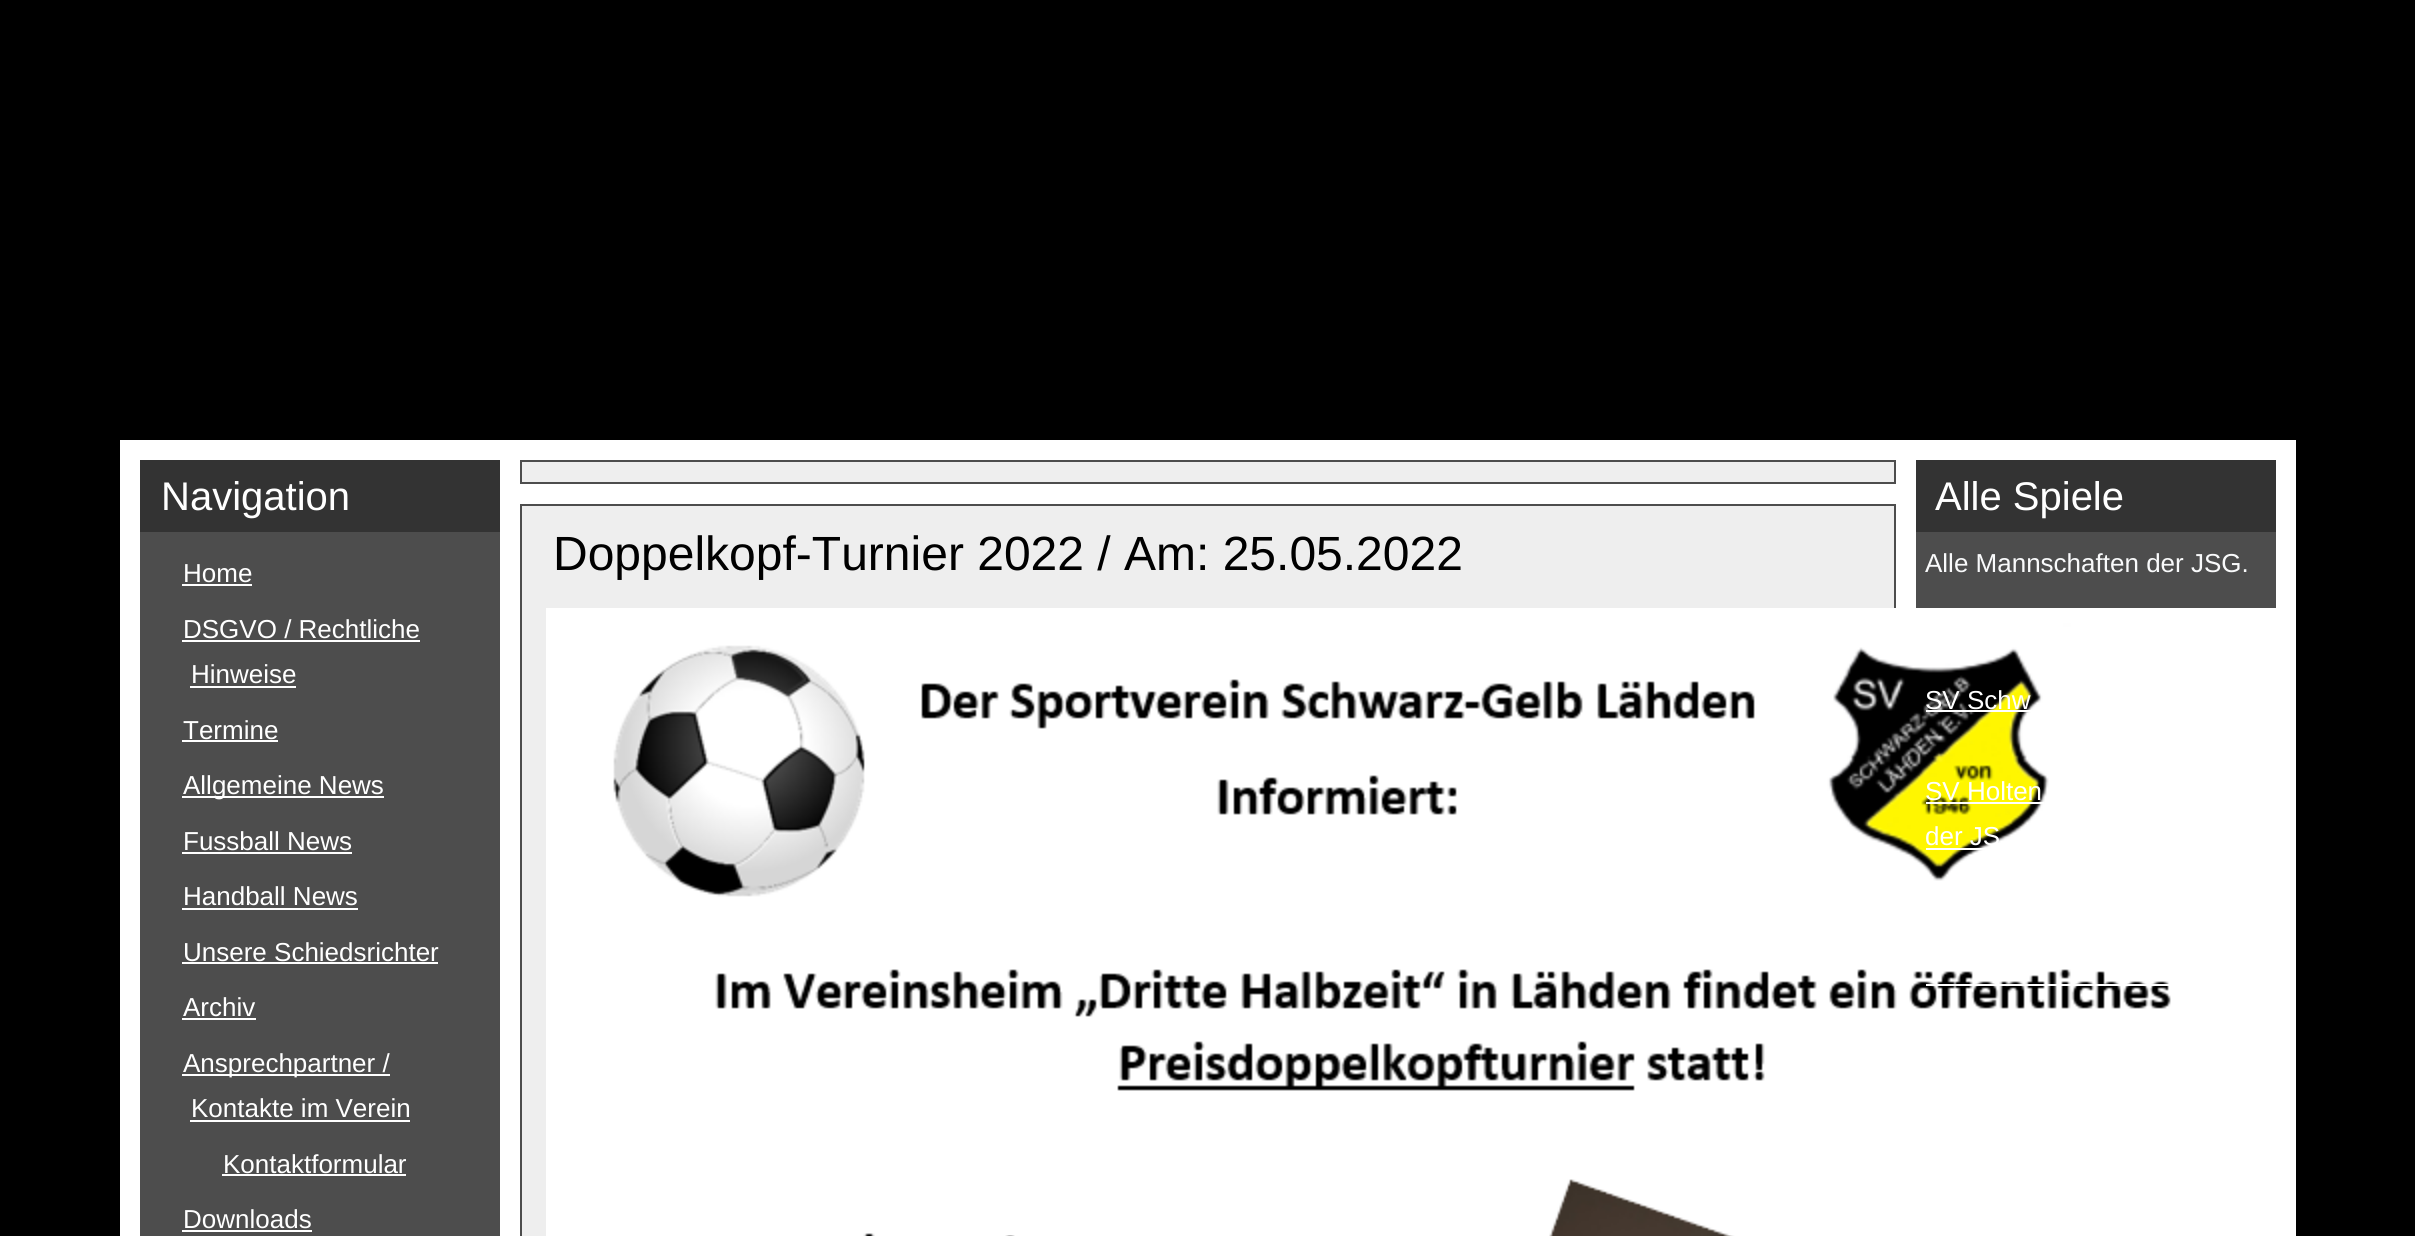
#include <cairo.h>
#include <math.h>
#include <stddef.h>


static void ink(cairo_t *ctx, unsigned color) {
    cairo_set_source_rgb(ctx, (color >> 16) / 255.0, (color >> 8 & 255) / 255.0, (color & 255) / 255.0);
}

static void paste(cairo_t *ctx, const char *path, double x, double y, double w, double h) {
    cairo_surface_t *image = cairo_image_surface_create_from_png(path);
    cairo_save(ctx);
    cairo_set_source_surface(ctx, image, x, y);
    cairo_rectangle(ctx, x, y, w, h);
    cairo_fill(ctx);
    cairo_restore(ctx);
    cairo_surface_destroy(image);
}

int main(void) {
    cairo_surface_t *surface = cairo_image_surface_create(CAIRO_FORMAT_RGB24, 2415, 1236);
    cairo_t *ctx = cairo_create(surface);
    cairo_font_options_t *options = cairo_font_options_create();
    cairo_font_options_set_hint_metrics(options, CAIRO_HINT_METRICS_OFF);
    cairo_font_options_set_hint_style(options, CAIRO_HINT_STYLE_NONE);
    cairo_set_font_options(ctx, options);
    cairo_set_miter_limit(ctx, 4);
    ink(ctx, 0x000000);
    cairo_paint(ctx);
    ink(ctx, 0xFFFFFF);
    cairo_rectangle(ctx, 120, 440, 2176, 796);
    cairo_fill(ctx);
    ink(ctx, 0x333333);
    cairo_rectangle(ctx, 140, 460, 360, 72);
    cairo_fill(ctx);
    cairo_select_font_face(ctx, "Liberation Sans", CAIRO_FONT_SLANT_NORMAL, CAIRO_FONT_WEIGHT_NORMAL);
    cairo_set_font_size(ctx, 40);
    ink(ctx, 0xFFFFFF);
    cairo_move_to(ctx, 161, 510);
    cairo_show_text(ctx, "Navigation");
    ink(ctx, 0x4D4D4D);
    cairo_rectangle(ctx, 140, 532, 360, 704);
    cairo_fill(ctx);
    cairo_set_font_size(ctx, 26);
    ink(ctx, 0xFFFFFF);
    cairo_move_to(ctx, 183, 582);
    cairo_show_text(ctx, "Home");
    cairo_rectangle(ctx, 182, 584, 70, 2);
    cairo_fill(ctx);
    cairo_move_to(ctx, 183, 638);
    cairo_show_text(ctx, "DSGVO / Rechtliche");
    cairo_rectangle(ctx, 182, 640, 238, 2);
    cairo_fill(ctx);
    cairo_move_to(ctx, 191, 683);
    cairo_show_text(ctx, "Hinweise");
    cairo_rectangle(ctx, 190, 686, 106, 2);
    cairo_fill(ctx);
    cairo_move_to(ctx, 183, 739);
    cairo_show_text(ctx, "Termine");
    cairo_rectangle(ctx, 182, 740, 96, 2);
    cairo_fill(ctx);
    cairo_rectangle(ctx, 182, 796, 202, 2);
    cairo_fill(ctx);
    cairo_move_to(ctx, 183, 794);
    cairo_show_text(ctx, "Allgemeine News");
    cairo_move_to(ctx, 183, 850);
    cairo_show_text(ctx, "Fussball News");
    cairo_rectangle(ctx, 182, 852, 170, 2);
    cairo_fill(ctx);
    cairo_move_to(ctx, 183, 905);
    cairo_show_text(ctx, "Handball News");
    cairo_rectangle(ctx, 182, 908, 176, 2);
    cairo_fill(ctx);
    cairo_move_to(ctx, 183, 961);
    cairo_show_text(ctx, "Unsere Schiedsrichter");
    cairo_rectangle(ctx, 182, 962, 256, 2);
    cairo_fill(ctx);
    cairo_move_to(ctx, 183, 1016);
    cairo_show_text(ctx, "Archiv");
    cairo_rectangle(ctx, 182, 1018, 74, 2);
    cairo_fill(ctx);
    cairo_rectangle(ctx, 182, 1074, 208, 2);
    cairo_fill(ctx);
    cairo_move_to(ctx, 183, 1072);
    cairo_show_text(ctx, "Ansprechpartner /");
    cairo_move_to(ctx, 191, 1117);
    cairo_show_text(ctx, "Kontakte im Verein");
    cairo_rectangle(ctx, 190, 1120, 220, 2);
    cairo_fill(ctx);
    cairo_move_to(ctx, 223, 1173);
    cairo_show_text(ctx, "Kontaktformular");
    cairo_rectangle(ctx, 222, 1174, 184, 2);
    cairo_fill(ctx);
    cairo_move_to(ctx, 183, 1228);
    cairo_show_text(ctx, "Downloads");
    cairo_rectangle(ctx, 182, 1230, 130, 2);
    cairo_fill(ctx);
    ink(ctx, 0xEEEEEE);
    cairo_rectangle(ctx, 521, 461, 1374, 22);
    cairo_fill_preserve(ctx);
    ink(ctx, 0x4D4D4D);
    cairo_stroke(ctx);
    ink(ctx, 0xEEEEEE);
    cairo_rectangle(ctx, 521, 505, 1374, 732);
    cairo_fill_preserve(ctx);
    ink(ctx, 0x4D4D4D);
    cairo_stroke(ctx);
    cairo_set_font_size(ctx, 48);
    ink(ctx, 0x000000);
    cairo_move_to(ctx, 553, 570);
    cairo_show_text(ctx, "Doppelkopf-Turnier 2022 / Am: 25.05.2022");
    paste(ctx, "media/1.png", 546, 608, 1730, 628);
    ink(ctx, 0x333333);
    cairo_rectangle(ctx, 1916, 460, 360, 72);
    cairo_fill(ctx);
    cairo_set_font_size(ctx, 40);
    ink(ctx, 0xFFFFFF);
    cairo_move_to(ctx, 1935, 510);
    cairo_show_text(ctx, "Alle Spiele");
    ink(ctx, 0x4D4D4D);
    cairo_rectangle(ctx, 1916, 532, 360, 76);
    cairo_fill(ctx);
    cairo_set_font_size(ctx, 26);
    ink(ctx, 0xF9FAFB);
    cairo_move_to(ctx, 1925, 572);
    cairo_show_text(ctx, "Alle Mannschaften der JSG.");
    ink(ctx, 0xFFFFFF);
    cairo_move_to(ctx, 1925, 709);
    cairo_show_text(ctx, "SV Schw");
    cairo_rectangle(ctx, 1926, 710, 106, 2);
    cairo_fill(ctx);
    cairo_move_to(ctx, 1925, 800);
    cairo_show_text(ctx, "SV Holten");
    cairo_rectangle(ctx, 1926, 802, 118, 2);
    cairo_fill(ctx);
    cairo_move_to(ctx, 1925, 845);
    cairo_show_text(ctx, "der JS");
    cairo_rectangle(ctx, 1926, 848, 61, 2);
    cairo_fill(ctx);
    cairo_rectangle(ctx, 1926, 984, 243, 2);
    cairo_fill(ctx);
    cairo_surface_write_to_png(surface, "image.png");
    cairo_font_options_destroy(options);
    cairo_destroy(ctx);
    cairo_surface_destroy(surface);
    return 0;
}
